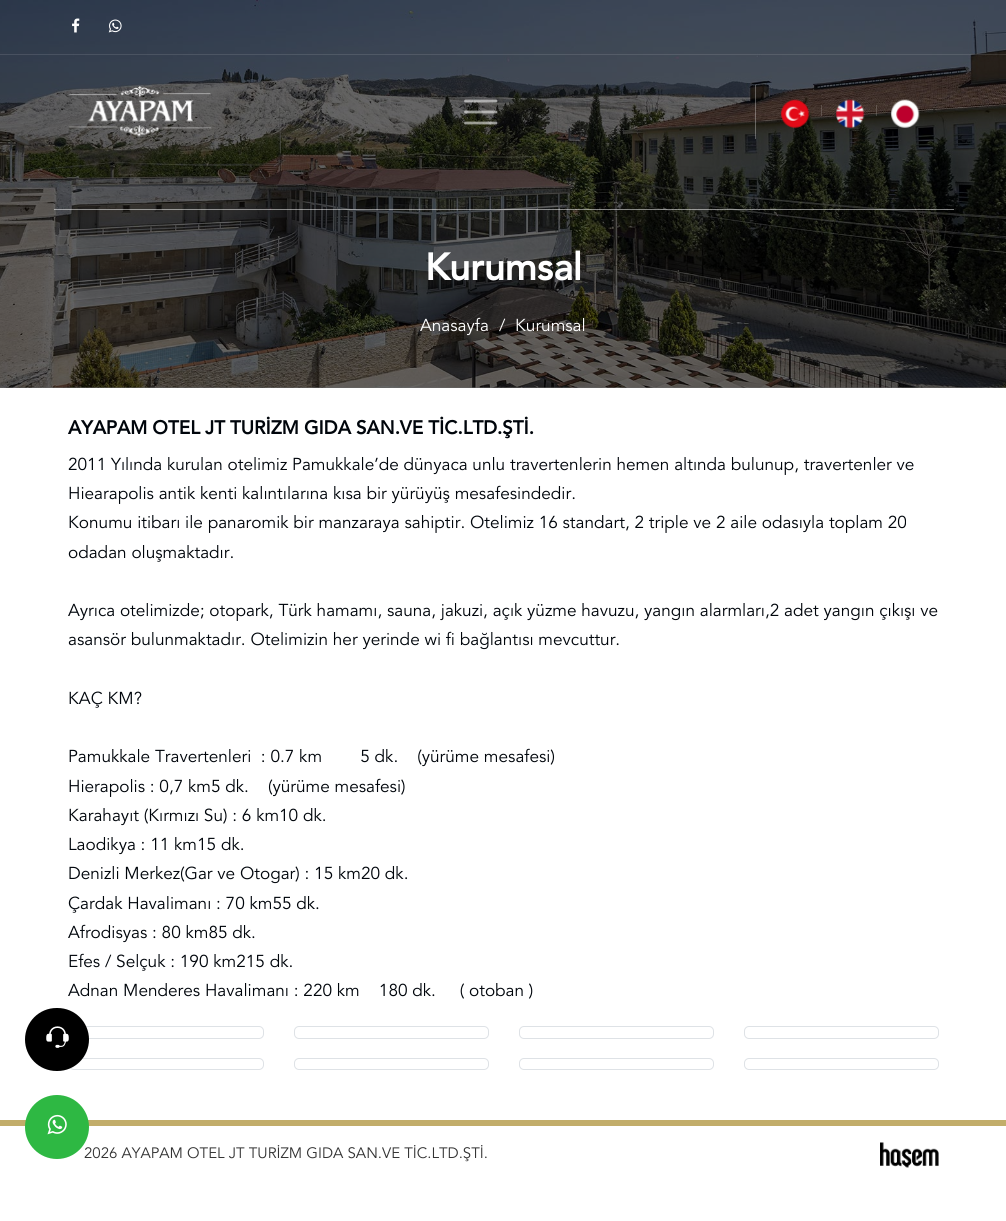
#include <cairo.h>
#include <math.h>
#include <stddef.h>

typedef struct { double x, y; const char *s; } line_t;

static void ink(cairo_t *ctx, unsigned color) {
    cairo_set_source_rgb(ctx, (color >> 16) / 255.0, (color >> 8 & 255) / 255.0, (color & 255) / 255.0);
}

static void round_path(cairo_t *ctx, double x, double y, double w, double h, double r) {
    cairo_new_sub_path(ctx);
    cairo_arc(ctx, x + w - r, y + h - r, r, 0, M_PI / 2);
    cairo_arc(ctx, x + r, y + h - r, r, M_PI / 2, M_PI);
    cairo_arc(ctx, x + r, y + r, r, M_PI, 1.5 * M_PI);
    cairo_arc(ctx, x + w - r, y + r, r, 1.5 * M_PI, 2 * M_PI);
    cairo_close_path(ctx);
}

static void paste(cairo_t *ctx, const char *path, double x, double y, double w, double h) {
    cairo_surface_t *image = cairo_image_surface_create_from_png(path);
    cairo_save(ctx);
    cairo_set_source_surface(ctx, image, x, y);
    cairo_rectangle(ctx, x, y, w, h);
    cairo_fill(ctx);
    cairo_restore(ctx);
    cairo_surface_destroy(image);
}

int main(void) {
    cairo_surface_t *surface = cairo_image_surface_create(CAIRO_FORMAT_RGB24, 1006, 1221);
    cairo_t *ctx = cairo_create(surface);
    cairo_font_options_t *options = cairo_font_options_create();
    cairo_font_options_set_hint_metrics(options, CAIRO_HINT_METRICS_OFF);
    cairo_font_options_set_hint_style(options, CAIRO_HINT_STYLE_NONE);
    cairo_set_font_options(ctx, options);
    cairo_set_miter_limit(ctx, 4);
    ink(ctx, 0xFFFFFF);
    cairo_paint(ctx);
    ink(ctx, 0x666666);
    cairo_rectangle(ctx, 0, 387, 1006, 1);
    cairo_fill(ctx);
    paste(ctx, "media/7.png", 0, 0, 1006, 388);
    cairo_set_source_rgba(ctx, 1, 1, 1, 0.11);
    cairo_rectangle(ctx, 0, 54, 1006, 1);
    cairo_fill(ctx);
    paste(ctx, "media/1.png", 72, 18, 8, 15);
    paste(ctx, "media/2.png", 108, 19, 14, 14);
    paste(ctx, "media/3.png", 68, 86, 144, 51);
    cairo_new_path(ctx);
    cairo_move_to(ctx, 465.5, 101);
    cairo_line_to(ctx, 496, 101);
    cairo_move_to(ctx, 465.5, 112);
    cairo_line_to(ctx, 496, 112);
    cairo_move_to(ctx, 465.5, 123);
    cairo_line_to(ctx, 496, 123);
    cairo_set_source_rgba(ctx, 1, 1, 1, 0.55);
    cairo_set_line_width(ctx, 2.8);
    cairo_set_line_cap(ctx, CAIRO_LINE_CAP_ROUND);
    cairo_stroke(ctx);
    cairo_set_source_rgba(ctx, 1, 1, 1, 0.31);
    cairo_rectangle(ctx, 755, 85, 1, 54);
    cairo_fill(ctx);
    paste(ctx, "media/4.png", 781, 99, 29, 29);
    cairo_set_source_rgba(ctx, 1, 1, 1, 0.17);
    cairo_rectangle(ctx, 821, 105, 1, 11);
    cairo_fill(ctx);
    paste(ctx, "media/5.png", 836, 99, 29, 29);
    cairo_rectangle(ctx, 876, 105, 1, 11);
    cairo_fill(ctx);
    paste(ctx, "media/6.png", 891, 99, 29, 29);
    cairo_set_source_rgba(ctx, 1, 1, 1, 0.5);
    cairo_rectangle(ctx, 54, 209, 900, 1);
    cairo_fill(ctx);
    cairo_select_font_face(ctx, "Avenir", CAIRO_FONT_SLANT_NORMAL, CAIRO_FONT_WEIGHT_BOLD);
    cairo_set_font_size(ctx, 37.5);
    ink(ctx, 0xFFFFFF);
    cairo_move_to(ctx, 425, 280);
    cairo_show_text(ctx, "Kurumsal");
    cairo_select_font_face(ctx, "Avenir", CAIRO_FONT_SLANT_NORMAL, CAIRO_FONT_WEIGHT_NORMAL);
    cairo_set_font_size(ctx, 17.2);
    {
        static const line_t items[] = {
            {420, 331, "Anasayfa"},
            {499, 331, "/"},
            {515, 331, "Kurumsal"},
        };
        for (size_t i = 0; i < sizeof items / sizeof *items; i++) {
            cairo_move_to(ctx, items[i].x, items[i].y);
            cairo_show_text(ctx, items[i].s);
        }
    }
    cairo_select_font_face(ctx, "Avenir", CAIRO_FONT_SLANT_NORMAL, CAIRO_FONT_WEIGHT_BOLD);
    cairo_set_font_size(ctx, 18.75);
    ink(ctx, 0x00050B);
    cairo_move_to(ctx, 68, 434);
    cairo_show_text(ctx, "AYAPAM OTEL JT TURİZM GIDA SAN.VE TİC.LTD.ŞTİ.");
    cairo_select_font_face(ctx, "Avenir", CAIRO_FONT_SLANT_NORMAL, CAIRO_FONT_WEIGHT_NORMAL);
    cairo_set_font_size(ctx, 17.2);
    {
        static const line_t items[] = {
            {68, 470, "2011 Yılında kurulan otelimiz Pamukkale’de dünyaca unlu travertenlerin hemen altında bulunup, travertenler ve"},
            {68, 499, "Hiearapolis antik kenti kalıntılarına kısa bir yürüyüş mesafesindedir."},
            {68, 528, "Konumu itibarı ile panaromik bir manzaraya sahiptir. Otelimiz 16 standart, 2 triple ve 2 aile odasıyla toplam 20"},
            {68, 558, "odadan oluşmaktadır."},
            {68, 616, "Ayrıca otelimizde; otopark, Türk hamamı, sauna, jakuzi, açık yüzme havuzu, yangın alarmları,2 adet yangın çıkışı ve"},
            {68, 645, "asansör bulunmaktadır. Otelimizin her yerinde wi fi bağlantısı mevcuttur."},
            {68, 704, "KAÇ KM?"},
            {68, 762, "Pamukkale Travertenleri  : 0.7 km        5 dk.    (yürüme mesafesi)"},
            {68, 792, "Hierapolis : 0,7 km5 dk.    (yürüme mesafesi)"},
            {68, 821, "Karahayıt (Kırmızı Su) : 6 km10 dk."},
            {68, 850, "Laodikya : 11 km15 dk."},
            {68, 879, "Denizli Merkez(Gar ve Otogar) : 15 km20 dk."},
            {68, 909, "Çardak Havalimanı : 70 km55 dk."},
            {68, 938, "Afrodisyas : 80 km85 dk."},
            {68, 967, "Efes / Selçuk : 190 km215 dk."},
            {68, 996, "Adnan Menderes Havalimanı : 220 km    180 dk.     ( otoban )"},
        };
        for (size_t i = 0; i < sizeof items / sizeof *items; i++) {
            cairo_move_to(ctx, items[i].x, items[i].y);
            cairo_show_text(ctx, items[i].s);
        }
    }
    round_path(ctx, 69.5, 1026.5, 194, 12, 4.5);
    ink(ctx, 0xDEE2E6);
    cairo_set_line_width(ctx, 1);
    cairo_set_line_cap(ctx, CAIRO_LINE_CAP_BUTT);
    cairo_stroke(ctx);
    round_path(ctx, 294.5, 1026.5, 194, 12, 4.5);
    cairo_stroke(ctx);
    round_path(ctx, 519.5, 1026.5, 194, 12, 4.5);
    cairo_stroke(ctx);
    round_path(ctx, 744.5, 1026.5, 194, 12, 4.5);
    cairo_stroke(ctx);
    round_path(ctx, 69.5, 1058.5, 194, 11, 4.5);
    cairo_stroke(ctx);
    round_path(ctx, 294.5, 1058.5, 194, 11, 4.5);
    cairo_stroke(ctx);
    round_path(ctx, 519.5, 1058.5, 194, 11, 4.5);
    cairo_stroke(ctx);
    round_path(ctx, 744.5, 1058.5, 194, 11, 4.5);
    cairo_stroke(ctx);
    ink(ctx, 0x000000);
    round_path(ctx, 25, 1008, 64, 63, 31.5);
    cairo_fill(ctx);
    paste(ctx, "media/8.png", 46, 1026, 23, 22);
    ink(ctx, 0xC2AD6A);
    cairo_rectangle(ctx, 0, 1120, 1006, 6);
    cairo_fill(ctx);
    cairo_set_font_size(ctx, 15);
    ink(ctx, 0x333333);
    cairo_move_to(ctx, 84, 1158);
    cairo_show_text(ctx, "2026 AYAPAM OTEL JT TURİZM GIDA SAN.VE TİC.LTD.ŞTİ.");
    ink(ctx, 0x2EB843);
    cairo_new_path(ctx);
    cairo_arc(ctx, 57, 1127, 32, 0, 2 * M_PI);
    cairo_fill(ctx);
    paste(ctx, "media/9.png", 47, 1114, 20, 21);
    paste(ctx, "media/10.png", 880, 1142, 59, 26);
    cairo_surface_write_to_png(surface, "image.png");
    cairo_font_options_destroy(options);
    cairo_destroy(ctx);
    cairo_surface_destroy(surface);
    return 0;
}
